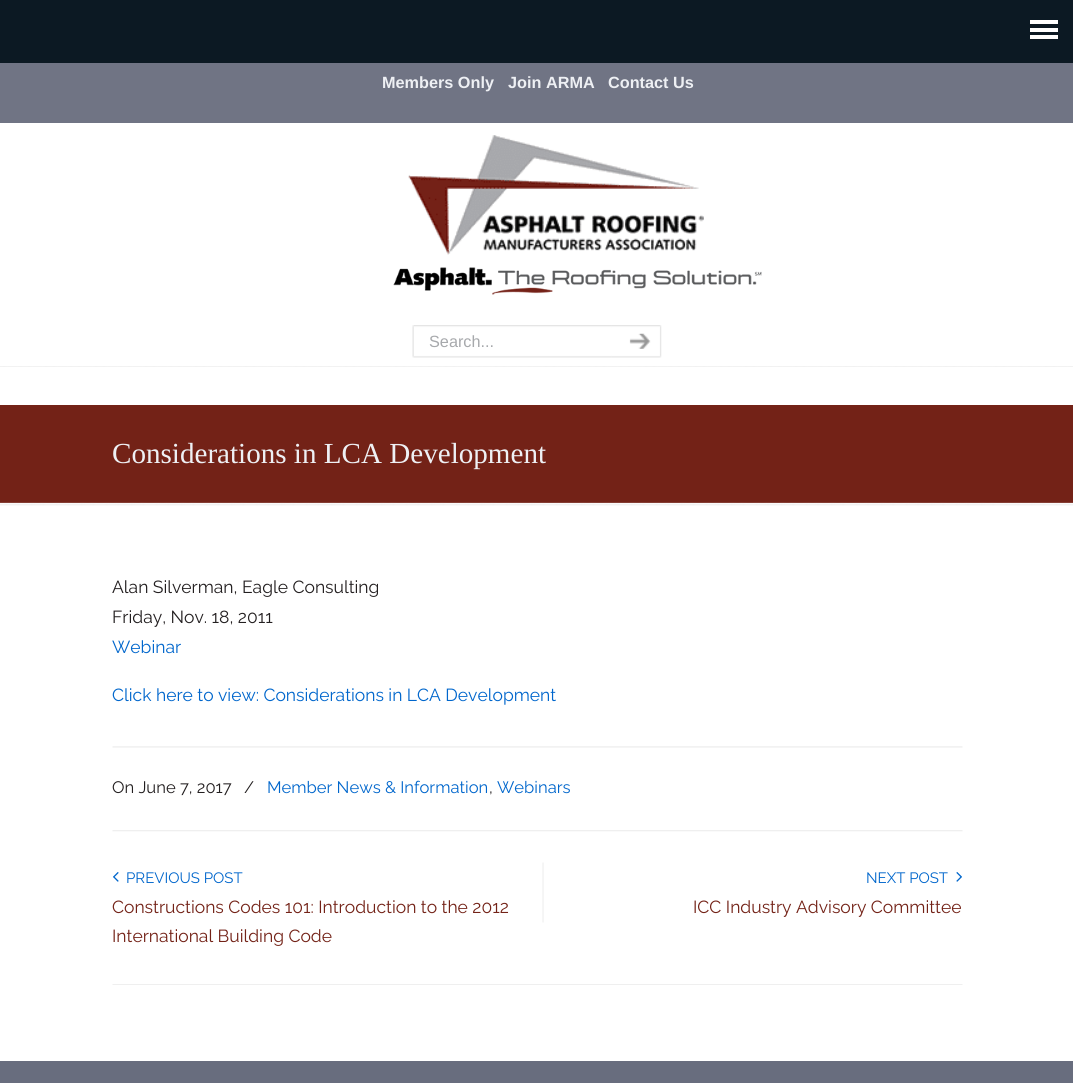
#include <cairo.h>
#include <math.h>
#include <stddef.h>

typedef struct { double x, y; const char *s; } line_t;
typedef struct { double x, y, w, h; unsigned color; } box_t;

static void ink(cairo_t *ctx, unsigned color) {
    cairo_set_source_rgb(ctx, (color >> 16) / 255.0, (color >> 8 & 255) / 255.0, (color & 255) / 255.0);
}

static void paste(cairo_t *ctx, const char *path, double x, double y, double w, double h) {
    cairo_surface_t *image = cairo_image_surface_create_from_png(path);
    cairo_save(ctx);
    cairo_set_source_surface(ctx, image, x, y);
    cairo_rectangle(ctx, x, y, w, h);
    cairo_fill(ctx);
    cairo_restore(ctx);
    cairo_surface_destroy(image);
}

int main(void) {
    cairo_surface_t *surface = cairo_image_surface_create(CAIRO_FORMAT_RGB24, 1073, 1083);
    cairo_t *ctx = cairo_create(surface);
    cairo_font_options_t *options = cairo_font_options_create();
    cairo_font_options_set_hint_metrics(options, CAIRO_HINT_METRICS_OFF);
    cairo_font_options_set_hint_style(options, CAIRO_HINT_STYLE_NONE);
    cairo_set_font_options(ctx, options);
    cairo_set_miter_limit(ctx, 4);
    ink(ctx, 0x732217);
    cairo_paint(ctx);
    {
        static const box_t items[] = {
            {0, 0, 1073, 63, 0x0C1923},
            {1030, 20, 28, 4, 0xFFFFFF},
            {1030, 28, 28, 4, 0xFFFFFF},
            {1030, 35, 28, 4, 0xFFFFFF},
            {0, 123, 1073, 282, 0xFFFFFF},
            {0, 63, 1073, 60, 0x707484},
        };
        for (size_t i = 0; i < sizeof items / sizeof *items; i++) {
            ink(ctx, items[i].color);
            cairo_rectangle(ctx, items[i].x, items[i].y, items[i].w, items[i].h);
            cairo_fill(ctx);
        }
    }
    cairo_select_font_face(ctx, "Liberation Sans", CAIRO_FONT_SLANT_NORMAL, CAIRO_FONT_WEIGHT_BOLD);
    cairo_set_font_size(ctx, 16.25);
    ink(ctx, 0xEEF0F4);
    {
        static const line_t items[] = {
            {382, 88, "Members Only"},
            {508, 88, "Join ARMA"},
            {608, 88, "Contact Us"},
        };
        for (size_t i = 0; i < sizeof items / sizeof *items; i++) {
            cairo_move_to(ctx, items[i].x, items[i].y);
            cairo_show_text(ctx, items[i].s);
        }
    }
    paste(ctx, "media/1.png", 408, 135, 296, 120);
    paste(ctx, "media/2.png", 393, 267, 369, 28);
    paste(ctx, "media/3.png", 412, 325, 200, 33);
    cairo_select_font_face(ctx, "Liberation Sans", CAIRO_FONT_SLANT_NORMAL, CAIRO_FONT_WEIGHT_NORMAL);
    ink(ctx, 0xA7A9AC);
    cairo_move_to(ctx, 429, 347);
    cairo_show_text(ctx, "Search...");
    paste(ctx, "media/4.png", 611, 325, 51, 33);
    paste(ctx, "media/5.png", 0, 366, 1073, 1);
    cairo_select_font_face(ctx, "Liberation Serif", CAIRO_FONT_SLANT_NORMAL, CAIRO_FONT_WEIGHT_NORMAL);
    cairo_set_font_size(ctx, 29.1);
    ink(ctx, 0xEEF0F4);
    cairo_move_to(ctx, 112, 463);
    cairo_show_text(ctx, "Considerations in LCA Development");
    ink(ctx, 0xFFFFFF);
    cairo_rectangle(ctx, 0, 503, 1073, 558);
    cairo_fill(ctx);
    paste(ctx, "media/6.png", 0, 502, 1073, 4);
    cairo_select_font_face(ctx, "Raleway", CAIRO_FONT_SLANT_NORMAL, CAIRO_FONT_WEIGHT_NORMAL);
    cairo_set_font_size(ctx, 17.5);
    ink(ctx, 0x231F20);
    cairo_move_to(ctx, 112, 593);
    cairo_show_text(ctx, "Alan Silverman, Eagle Consulting");
    cairo_move_to(ctx, 112, 623);
    cairo_show_text(ctx, "Friday, Nov. 18, 2011");
    ink(ctx, 0x0066CC);
    cairo_move_to(ctx, 112, 653);
    cairo_show_text(ctx, "Webinar");
    cairo_move_to(ctx, 112, 701);
    cairo_show_text(ctx, "Click here to view: Considerations in LCA Development");
    paste(ctx, "media/7.png", 112, 746, 851, 2);
    cairo_set_font_size(ctx, 16.6);
    ink(ctx, 0x231F20);
    cairo_move_to(ctx, 112, 793);
    cairo_show_text(ctx, "On June 7, 2017");
    cairo_move_to(ctx, 244, 793);
    cairo_show_text(ctx, "/");
    ink(ctx, 0x0066CC);
    cairo_move_to(ctx, 267, 793);
    cairo_show_text(ctx, "Member News & Information");
    ink(ctx, 0x231F20);
    cairo_move_to(ctx, 489, 793);
    cairo_show_text(ctx, ",");
    ink(ctx, 0x0066CC);
    cairo_move_to(ctx, 497, 793);
    cairo_show_text(ctx, "Webinars");
    paste(ctx, "media/8.png", 112, 830, 851, 2);
    paste(ctx, "media/9.png", 113, 872, 6, 10);
    cairo_set_font_size(ctx, 15);
    cairo_move_to(ctx, 126, 883);
    cairo_show_text(ctx, "PREVIOUS POST");
    cairo_set_font_size(ctx, 17.5);
    ink(ctx, 0x732217);
    cairo_move_to(ctx, 112, 913);
    cairo_show_text(ctx, "Constructions Codes 101: Introduction to the 2012");
    cairo_move_to(ctx, 112, 942);
    cairo_show_text(ctx, "International Building Code");
    paste(ctx, "media/10.png", 542, 862, 2, 61);
    cairo_set_font_size(ctx, 15);
    ink(ctx, 0x0066CC);
    cairo_move_to(ctx, 866, 883);
    cairo_show_text(ctx, "NEXT POST");
    paste(ctx, "media/11.png", 956, 872, 6, 10);
    cairo_set_font_size(ctx, 17.5);
    ink(ctx, 0x732217);
    cairo_move_to(ctx, 693, 913);
    cairo_show_text(ctx, "ICC Industry Advisory Committee");
    paste(ctx, "media/12.png", 112, 984, 851, 1);
    ink(ctx, 0x686D7E);
    cairo_rectangle(ctx, 0, 1061, 1073, 22);
    cairo_fill(ctx);
    cairo_surface_write_to_png(surface, "image.png");
    cairo_font_options_destroy(options);
    cairo_destroy(ctx);
    cairo_surface_destroy(surface);
    return 0;
}
